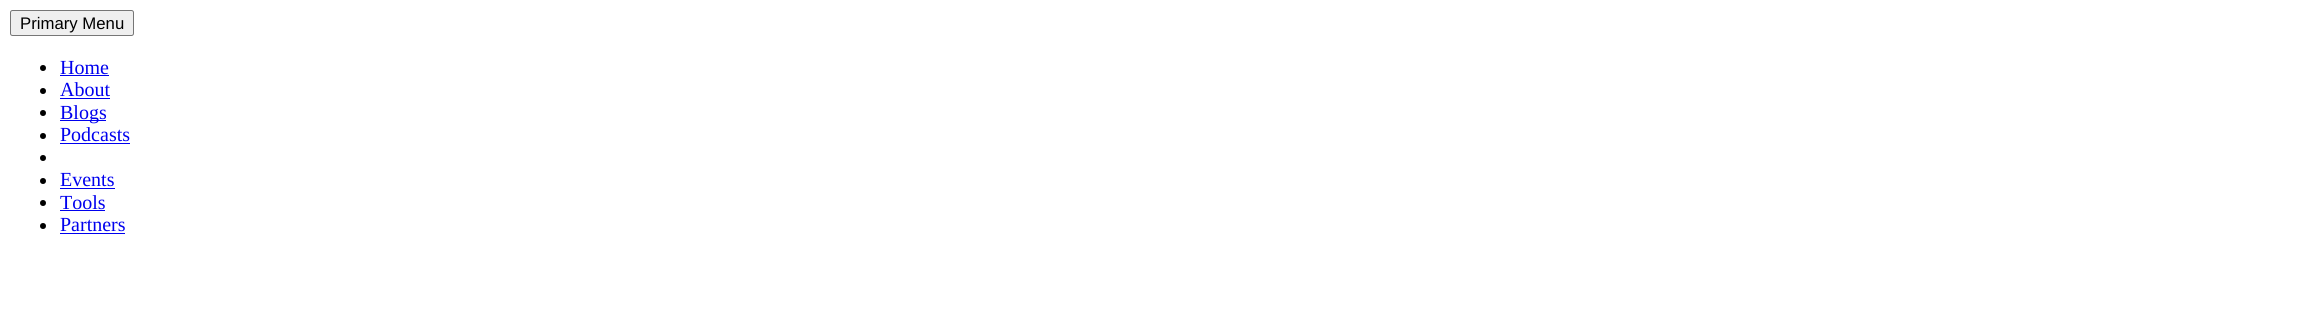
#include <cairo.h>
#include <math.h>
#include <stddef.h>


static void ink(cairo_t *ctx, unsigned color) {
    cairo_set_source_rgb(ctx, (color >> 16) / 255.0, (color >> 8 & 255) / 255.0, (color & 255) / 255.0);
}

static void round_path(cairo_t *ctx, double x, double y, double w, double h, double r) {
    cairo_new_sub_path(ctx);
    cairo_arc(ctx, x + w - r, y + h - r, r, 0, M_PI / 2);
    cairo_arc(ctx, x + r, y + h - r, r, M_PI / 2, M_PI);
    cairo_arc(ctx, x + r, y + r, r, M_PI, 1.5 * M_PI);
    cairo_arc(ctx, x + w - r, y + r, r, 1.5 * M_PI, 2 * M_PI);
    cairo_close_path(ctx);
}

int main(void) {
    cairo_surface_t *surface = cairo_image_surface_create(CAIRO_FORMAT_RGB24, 2303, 317);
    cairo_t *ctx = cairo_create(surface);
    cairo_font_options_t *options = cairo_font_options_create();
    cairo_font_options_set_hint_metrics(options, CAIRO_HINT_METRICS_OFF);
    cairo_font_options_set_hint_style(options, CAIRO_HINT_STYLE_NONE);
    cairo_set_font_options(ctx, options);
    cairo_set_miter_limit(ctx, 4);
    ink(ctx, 0xFFFFFF);
    cairo_paint(ctx);
    ink(ctx, 0xEFEFEF);
    round_path(ctx, 10.5, 10.5, 123, 25, 2);
    cairo_fill_preserve(ctx);
    ink(ctx, 0x767676);
    cairo_set_line_width(ctx, 1);
    cairo_stroke(ctx);
    cairo_select_font_face(ctx, "Liberation Sans", CAIRO_FONT_SLANT_NORMAL, CAIRO_FONT_WEIGHT_NORMAL);
    cairo_set_font_size(ctx, 16.75);
    ink(ctx, 0x000000);
    cairo_move_to(ctx, 20, 29);
    cairo_show_text(ctx, "Primary Menu");
    cairo_new_path(ctx);
    cairo_arc(ctx, 43, 68, 3, 0, 2 * M_PI);
    cairo_fill(ctx);
    cairo_select_font_face(ctx, "Liberation Serif", CAIRO_FONT_SLANT_NORMAL, CAIRO_FONT_WEIGHT_NORMAL);
    cairo_set_font_size(ctx, 20);
    ink(ctx, 0x0000EE);
    cairo_move_to(ctx, 60, 74);
    cairo_show_text(ctx, "Home");
    cairo_rectangle(ctx, 60, 75, 49, 1);
    cairo_fill(ctx);
    ink(ctx, 0x000000);
    cairo_arc(ctx, 43, 91, 3, 0, 2 * M_PI);
    cairo_fill(ctx);
    ink(ctx, 0x0000EE);
    cairo_move_to(ctx, 60, 96);
    cairo_show_text(ctx, "About");
    cairo_rectangle(ctx, 60, 98, 50, 1);
    cairo_fill(ctx);
    ink(ctx, 0x000000);
    cairo_arc(ctx, 43, 113, 3, 0, 2 * M_PI);
    cairo_fill(ctx);
    ink(ctx, 0x0000EE);
    cairo_rectangle(ctx, 60, 120, 46, 1);
    cairo_fill(ctx);
    cairo_move_to(ctx, 60, 119);
    cairo_show_text(ctx, "Blogs");
    ink(ctx, 0x000000);
    cairo_new_path(ctx);
    cairo_arc(ctx, 43, 136, 3, 0, 2 * M_PI);
    cairo_fill(ctx);
    ink(ctx, 0x0000EE);
    cairo_move_to(ctx, 60, 141);
    cairo_show_text(ctx, "Podcasts");
    cairo_rectangle(ctx, 60, 143, 70, 1);
    cairo_fill(ctx);
    ink(ctx, 0x000000);
    cairo_arc(ctx, 43, 158, 3, 0, 2 * M_PI);
    cairo_fill(ctx);
    cairo_arc(ctx, 43, 181, 3, 0, 2 * M_PI);
    cairo_fill(ctx);
    ink(ctx, 0x0000EE);
    cairo_move_to(ctx, 60, 186);
    cairo_show_text(ctx, "Events");
    cairo_rectangle(ctx, 60, 188, 55, 1);
    cairo_fill(ctx);
    ink(ctx, 0x000000);
    cairo_arc(ctx, 43, 203, 3, 0, 2 * M_PI);
    cairo_fill(ctx);
    ink(ctx, 0x0000EE);
    cairo_move_to(ctx, 60, 209);
    cairo_show_text(ctx, "Tools");
    cairo_rectangle(ctx, 60, 210, 45, 1);
    cairo_fill(ctx);
    ink(ctx, 0x000000);
    cairo_arc(ctx, 43, 226, 3, 0, 2 * M_PI);
    cairo_fill(ctx);
    ink(ctx, 0x0000EE);
    cairo_move_to(ctx, 60, 231);
    cairo_show_text(ctx, "Partners");
    cairo_rectangle(ctx, 60, 233, 65, 1);
    cairo_fill(ctx);
    cairo_surface_write_to_png(surface, "image.png");
    cairo_font_options_destroy(options);
    cairo_destroy(ctx);
    cairo_surface_destroy(surface);
    return 0;
}
